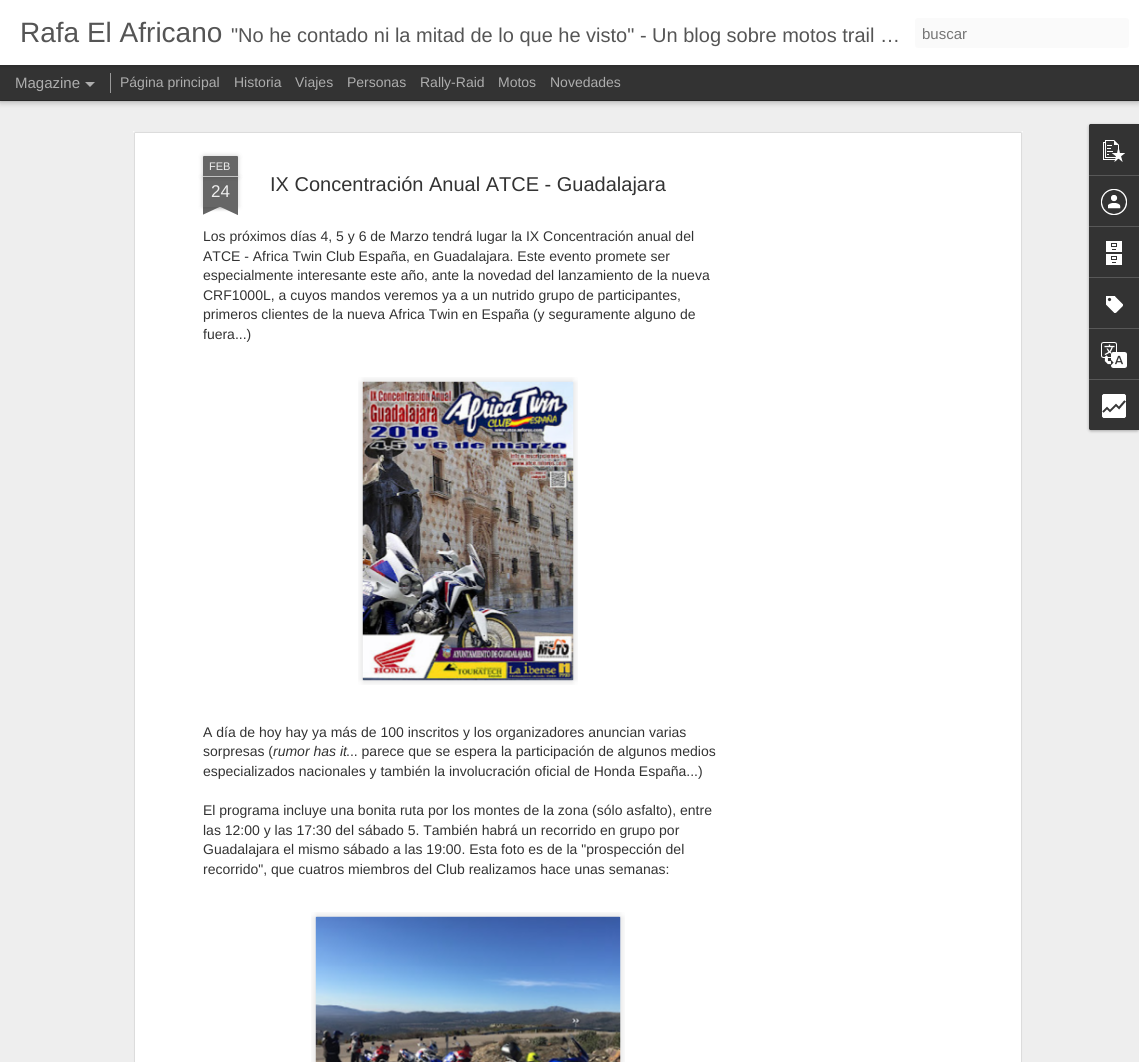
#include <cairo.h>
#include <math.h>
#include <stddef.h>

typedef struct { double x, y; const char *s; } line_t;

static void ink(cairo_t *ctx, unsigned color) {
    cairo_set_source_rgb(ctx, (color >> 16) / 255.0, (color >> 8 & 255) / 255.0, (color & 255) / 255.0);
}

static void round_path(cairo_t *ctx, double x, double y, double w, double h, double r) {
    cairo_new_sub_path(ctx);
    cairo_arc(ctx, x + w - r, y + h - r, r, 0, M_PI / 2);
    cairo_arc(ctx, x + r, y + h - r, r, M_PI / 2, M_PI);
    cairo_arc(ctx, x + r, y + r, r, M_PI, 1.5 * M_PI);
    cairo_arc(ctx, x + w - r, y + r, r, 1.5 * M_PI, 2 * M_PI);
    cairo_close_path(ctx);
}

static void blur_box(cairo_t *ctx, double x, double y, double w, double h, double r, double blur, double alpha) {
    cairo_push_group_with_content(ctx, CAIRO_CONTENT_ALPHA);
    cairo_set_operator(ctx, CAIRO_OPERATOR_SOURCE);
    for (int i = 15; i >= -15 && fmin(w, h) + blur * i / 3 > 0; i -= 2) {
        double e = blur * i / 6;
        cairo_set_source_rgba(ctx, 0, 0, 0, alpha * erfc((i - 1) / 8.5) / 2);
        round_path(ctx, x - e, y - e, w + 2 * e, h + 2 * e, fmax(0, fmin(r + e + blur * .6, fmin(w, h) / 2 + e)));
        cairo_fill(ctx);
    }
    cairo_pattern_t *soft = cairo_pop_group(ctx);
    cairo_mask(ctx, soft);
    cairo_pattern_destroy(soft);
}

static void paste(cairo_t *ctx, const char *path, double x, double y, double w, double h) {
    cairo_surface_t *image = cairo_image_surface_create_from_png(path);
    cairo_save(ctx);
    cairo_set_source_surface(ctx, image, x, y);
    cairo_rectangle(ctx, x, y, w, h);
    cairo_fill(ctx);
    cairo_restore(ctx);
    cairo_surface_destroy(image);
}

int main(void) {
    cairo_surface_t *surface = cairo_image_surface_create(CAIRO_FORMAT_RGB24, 1139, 1062);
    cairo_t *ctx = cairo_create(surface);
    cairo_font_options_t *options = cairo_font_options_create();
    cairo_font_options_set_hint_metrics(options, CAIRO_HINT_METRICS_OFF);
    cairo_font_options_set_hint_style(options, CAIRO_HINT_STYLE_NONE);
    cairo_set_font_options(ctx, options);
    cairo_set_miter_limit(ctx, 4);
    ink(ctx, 0x333333);
    cairo_paint(ctx);
    ink(ctx, 0xEEEEEE);
    cairo_rectangle(ctx, 0, 101, 1139, 961);
    cairo_fill(ctx);
    ink(ctx, 0x000000);
    blur_box(ctx, 0, 65, 1139, 35, 0, 4, 0.5);
    ink(ctx, 0x333333);
    cairo_rectangle(ctx, 0, 65, 1139, 35);
    cairo_fill(ctx);
    ink(ctx, 0x999999);
    cairo_rectangle(ctx, 110, 73, 1, 20);
    cairo_fill(ctx);
    ink(ctx, 0x000000);
    blur_box(ctx, 0, 0, 1139, 65, 0, 2.5, 0.3);
    ink(ctx, 0xFFFFFF);
    cairo_rectangle(ctx, 0, 0, 1139, 65);
    cairo_fill(ctx);
    cairo_select_font_face(ctx, "Liberation Sans", CAIRO_FONT_SLANT_NORMAL, CAIRO_FONT_WEIGHT_NORMAL);
    cairo_set_font_size(ctx, 28);
    ink(ctx, 0x555555);
    cairo_move_to(ctx, 20, 42);
    cairo_show_text(ctx, "Rafa El Africano");
    cairo_set_font_size(ctx, 20);
    cairo_move_to(ctx, 231, 42);
    cairo_show_text(ctx, "\"No he contado ni la mitad de lo que he visto\" - Un blog sobre motos trail …");
    ink(ctx, 0xFAFAFA);
    round_path(ctx, 915, 18, 214, 30, 3);
    cairo_fill(ctx);
    cairo_set_font_size(ctx, 15);
    ink(ctx, 0x757575);
    cairo_move_to(ctx, 922, 39);
    cairo_show_text(ctx, "buscar");
    ink(ctx, 0xADADAD);
    cairo_move_to(ctx, 15, 88);
    cairo_show_text(ctx, "Magazine");
    cairo_new_path(ctx);
    cairo_move_to(ctx, 85, 82);
    cairo_line_to(ctx, 95, 82);
    cairo_line_to(ctx, 90, 87);
    cairo_close_path(ctx);
    cairo_fill(ctx);
    cairo_set_font_size(ctx, 14);
    {
        static const line_t items[] = {
            {120, 87, "Página principal"},
            {234, 87, "Historia"},
            {295, 87, "Viajes"},
            {347, 87, "Personas"},
            {420, 87, "Rally-Raid"},
            {498, 87, "Motos"},
            {550, 87, "Novedades"},
        };
        for (size_t i = 0; i < sizeof items / sizeof *items; i++) {
            cairo_move_to(ctx, items[i].x, items[i].y);
            cairo_show_text(ctx, items[i].s);
        }
    }
    ink(ctx, 0xFFFFFF);
    cairo_rectangle(ctx, 133, 131, 890, 931);
    cairo_fill(ctx);
    paste(ctx, "media/1.png", 133, 131, 890, 931);
    ink(ctx, 0x000000);
    blur_box(ctx, 203, 177, 35, 30, 0, 2.5, 0.2);
    ink(ctx, 0x666666);
    cairo_rectangle(ctx, 203, 177, 35, 30);
    cairo_fill(ctx);
    ink(ctx, 0x000000);
    blur_box(ctx, 203, 156, 35, 21, 1, 2.5, 0.2);
    ink(ctx, 0x666666);
    cairo_new_path(ctx);
    cairo_move_to(ctx, 204, 156);
    cairo_line_to(ctx, 237, 156);
    cairo_curve_to(ctx, 237.5, 156, 238, 156.5, 238, 157);
    cairo_line_to(ctx, 238, 177);
    cairo_line_to(ctx, 203, 177);
    cairo_line_to(ctx, 203, 157);
    cairo_curve_to(ctx, 203, 156.5, 203.5, 156, 204, 156);
    cairo_close_path(ctx);
    cairo_fill(ctx);
    ink(ctx, 0xC2C2C2);
    cairo_rectangle(ctx, 203, 176, 35, 1);
    cairo_fill(ctx);
    cairo_set_font_size(ctx, 11);
    ink(ctx, 0xEEEEEE);
    cairo_move_to(ctx, 209, 170);
    cairo_show_text(ctx, "FEB");
    cairo_set_font_size(ctx, 17);
    cairo_move_to(ctx, 211, 197);
    cairo_show_text(ctx, "24");
    cairo_save(ctx);
    cairo_rectangle(ctx, 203, 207, 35, 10);
    cairo_clip(ctx);
    ink(ctx, 0x000000);
    blur_box(ctx, 194, 197, 50, 10, 0, 2.5, 0.2);
    cairo_restore(ctx);
    cairo_save(ctx);
    cairo_rectangle(ctx, 203, 207, 35, 10);
    cairo_clip(ctx);
    ink(ctx, 0x666666);
    cairo_new_path(ctx);
    cairo_move_to(ctx, 194, 208);
    cairo_line_to(ctx, 239, 187);
    cairo_line_to(ctx, 243, 196);
    cairo_line_to(ctx, 198, 217);
    cairo_close_path(ctx);
    cairo_fill(ctx);
    cairo_restore(ctx);
    cairo_save(ctx);
    cairo_rectangle(ctx, 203, 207, 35, 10);
    cairo_clip(ctx);
    ink(ctx, 0x000000);
    blur_box(ctx, 197, 197, 50, 10, 0, 2.5, 0.2);
    cairo_restore(ctx);
    cairo_save(ctx);
    cairo_rectangle(ctx, 203, 207, 35, 10);
    cairo_clip(ctx);
    ink(ctx, 0x666666);
    cairo_new_path(ctx);
    cairo_move_to(ctx, 201, 187);
    cairo_line_to(ctx, 246, 208);
    cairo_line_to(ctx, 242, 217);
    cairo_line_to(ctx, 197, 196);
    cairo_close_path(ctx);
    cairo_fill(ctx);
    cairo_restore(ctx);
    cairo_set_font_size(ctx, 20);
    ink(ctx, 0x333333);
    cairo_move_to(ctx, 270, 191);
    cairo_show_text(ctx, "IX Concentración Anual ATCE - Guadalajara");
    cairo_set_font_size(ctx, 14);
    {
        static const line_t items[] = {
            {203, 241, "Los próximos días 4, 5 y 6 de Marzo tendrá lugar la IX Concentración anual del"},
            {203, 261, "ATCE - Africa Twin Club España, en Guadalajara. Este evento promete ser"},
            {203, 280, "especialmente interesante este año, ante la novedad del lanzamiento de la nueva"},
            {203, 300, "CRF1000L, a cuyos mandos veremos ya a un nutrido grupo de participantes,"},
            {203, 319, "primeros clientes de la nueva Africa Twin en España (y seguramente alguno de"},
            {203, 339, "fuera...)"},
        };
        for (size_t i = 0; i < sizeof items / sizeof *items; i++) {
            cairo_move_to(ctx, items[i].x, items[i].y);
            cairo_show_text(ctx, items[i].s);
        }
    }
    paste(ctx, "media/2.png", 358, 377, 220, 308);
    paste(ctx, "media/3.png", 362, 381, 212, 300);
    cairo_move_to(ctx, 203, 737);
    cairo_show_text(ctx, "A día de hoy hay ya más de 100 inscritos y los organizadores anuncian varias");
    cairo_move_to(ctx, 203, 756);
    cairo_show_text(ctx, "sorpresas (");
    cairo_select_font_face(ctx, "Liberation Sans", CAIRO_FONT_SLANT_ITALIC, CAIRO_FONT_WEIGHT_NORMAL);
    cairo_move_to(ctx, 273, 756);
    cairo_show_text(ctx, "rumor has it");
    cairo_select_font_face(ctx, "Liberation Sans", CAIRO_FONT_SLANT_NORMAL, CAIRO_FONT_WEIGHT_NORMAL);
    {
        static const line_t items[] = {
            {346, 756, "... parece que se espera la participación de algunos medios"},
            {203, 776, "especializados nacionales y también la involucración oficial de Honda España...)"},
            {203, 815, "El programa incluye una bonita ruta por los montes de la zona (sólo asfalto), entre"},
            {203, 835, "las 12:00 y las 17:30 del sábado 5. También habrá un recorrido en grupo por"},
            {203, 854, "Guadalajara el mismo sábado a las 19:00. Esta foto es de la \"prospección del"},
            {203, 874, "recorrido\", que cuatros miembros del Club realizamos hace unas semanas:"},
        };
        for (size_t i = 0; i < sizeof items / sizeof *items; i++) {
            cairo_move_to(ctx, items[i].x, items[i].y);
            cairo_show_text(ctx, items[i].s);
        }
    }
    paste(ctx, "media/4.png", 311, 912, 314, 150);
    paste(ctx, "media/5.png", 315, 916, 306, 146);
    ink(ctx, 0x000000);
    blur_box(ctx, 1089, 125, 50, 306, 2, 1.5, 0.3);
    ink(ctx, 0x333333);
    cairo_new_path(ctx);
    cairo_move_to(ctx, 1091, 124);
    cairo_line_to(ctx, 1139, 124);
    cairo_line_to(ctx, 1139, 430);
    cairo_line_to(ctx, 1091, 430);
    cairo_curve_to(ctx, 1090, 430, 1089, 429, 1089, 428);
    cairo_line_to(ctx, 1089, 126);
    cairo_curve_to(ctx, 1089, 125, 1090, 124, 1091, 124);
    cairo_close_path(ctx);
    cairo_fill(ctx);
    cairo_new_path(ctx);
    cairo_move_to(ctx, 1091, 124);
    cairo_line_to(ctx, 1139, 124);
    cairo_line_to(ctx, 1139, 175);
    cairo_line_to(ctx, 1089, 175);
    cairo_line_to(ctx, 1089, 126);
    cairo_curve_to(ctx, 1089, 125, 1090, 124, 1091, 124);
    cairo_close_path(ctx);
    cairo_fill(ctx);
    paste(ctx, "media/6.png", 1103, 140, 22, 22);
    ink(ctx, 0x585858);
    cairo_rectangle(ctx, 1089, 175, 50, 1);
    cairo_fill(ctx);
    paste(ctx, "media/7.png", 1101, 189, 26, 26);
    cairo_rectangle(ctx, 1089, 226, 50, 1);
    cairo_fill(ctx);
    paste(ctx, "media/8.png", 1106, 241, 16, 24);
    cairo_rectangle(ctx, 1089, 277, 50, 1);
    cairo_fill(ctx);
    paste(ctx, "media/9.png", 1106, 296, 17, 17);
    cairo_rectangle(ctx, 1089, 328, 50, 1);
    cairo_fill(ctx);
    paste(ctx, "media/10.png", 1101, 342, 26, 26);
    ink(ctx, 0x333333);
    cairo_new_path(ctx);
    cairo_move_to(ctx, 1089, 379);
    cairo_line_to(ctx, 1139, 379);
    cairo_line_to(ctx, 1139, 430);
    cairo_line_to(ctx, 1091, 430);
    cairo_curve_to(ctx, 1090, 430, 1089, 429, 1089, 428);
    cairo_close_path(ctx);
    cairo_fill(ctx);
    ink(ctx, 0x585858);
    cairo_rectangle(ctx, 1089, 379, 50, 1);
    cairo_fill(ctx);
    paste(ctx, "media/11.png", 1102, 394, 24, 24);
    cairo_surface_write_to_png(surface, "image.png");
    cairo_font_options_destroy(options);
    cairo_destroy(ctx);
    cairo_surface_destroy(surface);
    return 0;
}
